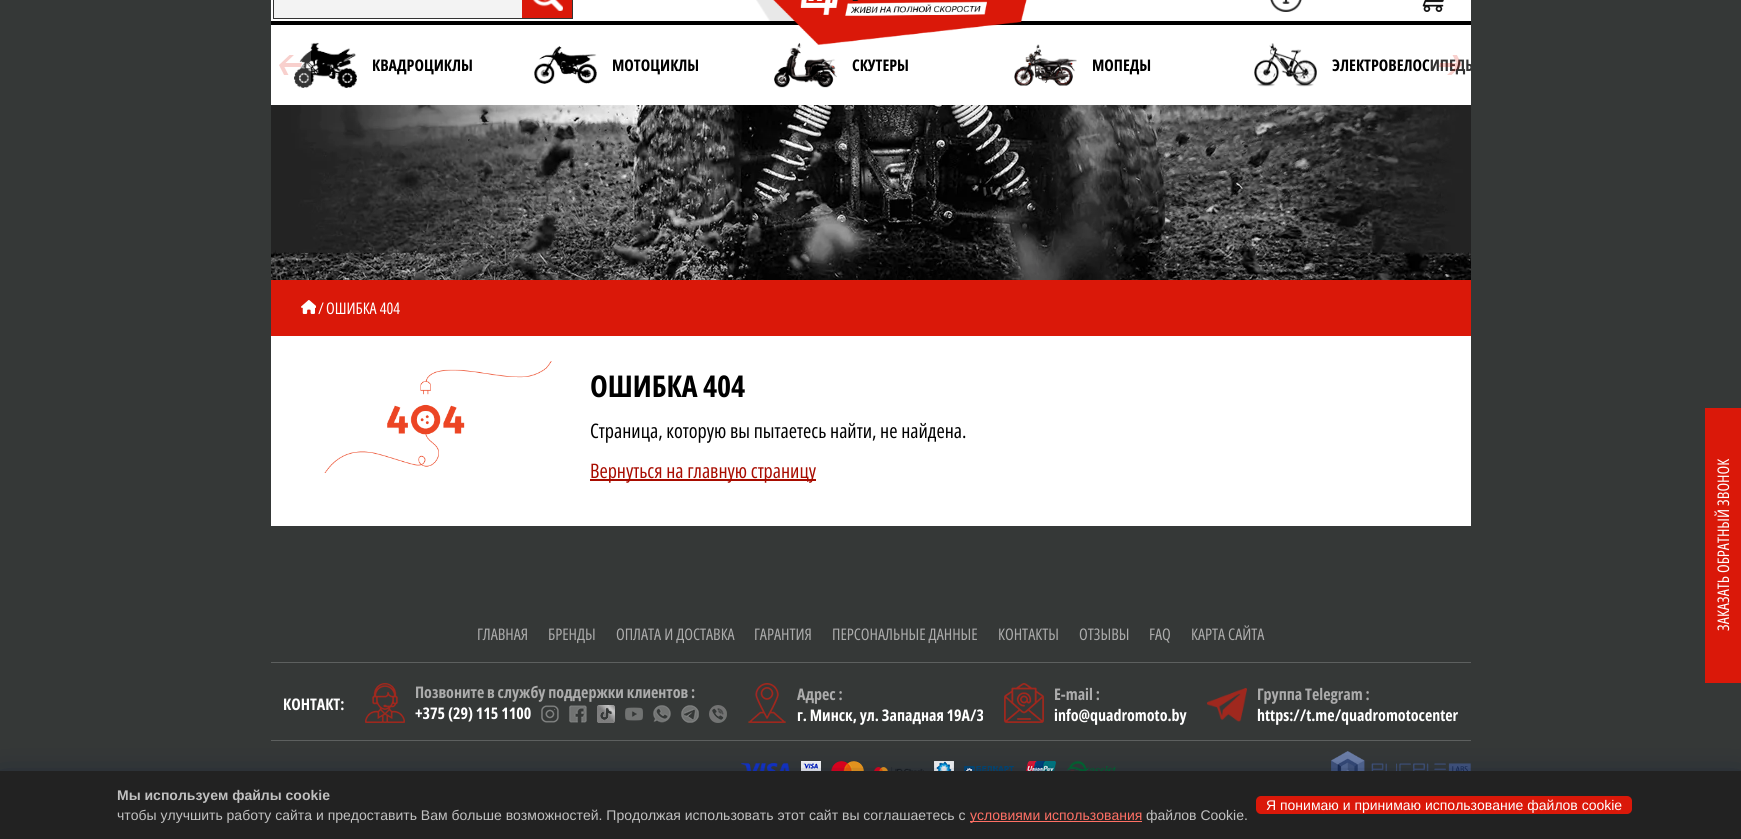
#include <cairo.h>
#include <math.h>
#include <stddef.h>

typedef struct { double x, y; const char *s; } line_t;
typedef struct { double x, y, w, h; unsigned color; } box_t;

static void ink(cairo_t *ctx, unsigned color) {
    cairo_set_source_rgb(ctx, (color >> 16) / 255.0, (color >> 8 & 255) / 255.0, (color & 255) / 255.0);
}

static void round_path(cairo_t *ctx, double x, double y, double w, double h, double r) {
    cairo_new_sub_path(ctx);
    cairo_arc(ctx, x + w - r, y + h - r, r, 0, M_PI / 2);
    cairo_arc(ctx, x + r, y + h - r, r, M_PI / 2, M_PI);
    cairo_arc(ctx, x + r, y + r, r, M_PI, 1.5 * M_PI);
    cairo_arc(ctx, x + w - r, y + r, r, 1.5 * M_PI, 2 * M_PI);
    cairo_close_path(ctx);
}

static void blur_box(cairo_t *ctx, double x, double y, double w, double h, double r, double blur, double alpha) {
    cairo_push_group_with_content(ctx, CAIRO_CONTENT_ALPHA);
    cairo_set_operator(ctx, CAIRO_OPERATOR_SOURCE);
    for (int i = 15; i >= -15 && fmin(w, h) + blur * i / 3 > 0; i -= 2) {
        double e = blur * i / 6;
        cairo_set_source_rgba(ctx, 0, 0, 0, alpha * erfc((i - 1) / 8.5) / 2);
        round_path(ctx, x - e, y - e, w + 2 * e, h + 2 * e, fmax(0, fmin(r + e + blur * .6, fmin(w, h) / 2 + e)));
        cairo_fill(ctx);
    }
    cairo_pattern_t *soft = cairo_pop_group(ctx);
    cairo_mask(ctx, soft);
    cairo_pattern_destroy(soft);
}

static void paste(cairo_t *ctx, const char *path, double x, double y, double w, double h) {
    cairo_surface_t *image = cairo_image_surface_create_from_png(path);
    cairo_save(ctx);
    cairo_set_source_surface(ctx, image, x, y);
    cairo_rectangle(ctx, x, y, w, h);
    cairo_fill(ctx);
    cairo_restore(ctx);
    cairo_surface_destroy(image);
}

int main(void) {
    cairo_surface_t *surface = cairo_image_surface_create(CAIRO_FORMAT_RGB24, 1741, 839);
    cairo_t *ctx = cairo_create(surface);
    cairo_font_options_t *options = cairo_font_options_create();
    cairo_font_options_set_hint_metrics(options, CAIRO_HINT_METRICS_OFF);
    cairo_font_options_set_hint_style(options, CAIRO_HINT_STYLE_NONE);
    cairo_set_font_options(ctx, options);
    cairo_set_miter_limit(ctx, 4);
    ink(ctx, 0x353837);
    cairo_paint(ctx);
    paste(ctx, "media/1.png", 271, 105, 1200, 175);
    {
        static const box_t items[] = {
            {271, 0, 1200, 21, 0xFFFFFF},
            {274, 0, 248, 18, 0xF3F3F3},
            {273, 18, 249, 1, 0x333333},
            {273, 0, 1, 19, 0x333333},
            {522, 0, 50, 18, 0xDA1809},
            {572, 0, 1, 19, 0x333333},
            {522, 18, 51, 1, 0x333333},
        };
        for (size_t i = 0; i < sizeof items / sizeof *items; i++) {
            ink(ctx, items[i].color);
            cairo_rectangle(ctx, items[i].x, items[i].y, items[i].w, items[i].h);
            cairo_fill(ctx);
        }
    }
    paste(ctx, "media/2.png", 532, 0, 31, 11);
    ink(ctx, 0x000000);
    cairo_rectangle(ctx, 271, 21, 1200, 4);
    cairo_fill(ctx);
    ink(ctx, 0xFFFFFF);
    cairo_rectangle(ctx, 271, 25, 1200, 80);
    cairo_fill(ctx);
    paste(ctx, "media/10.png", 774, 42, 63, 46);
    paste(ctx, "media/11.png", 1014, 44, 63, 42);
    paste(ctx, "media/3.png", 756, 0, 271, 45);
    paste(ctx, "media/4.png", 1270, 0, 32, 12);
    paste(ctx, "media/5.png", 1422, 0, 22, 12);
    paste(ctx, "media/8.png", 294, 42, 63, 46);
    cairo_set_source_rgba(ctx, 1, 1, 1, 0.2);
    cairo_rectangle(ctx, 294, 47, 17, 41);
    cairo_fill(ctx);
    paste(ctx, "media/6.png", 279, 55, 23, 20);
    cairo_save(ctx);
    cairo_rectangle(ctx, 271, 0, 1200, 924);
    cairo_clip(ctx);
    cairo_select_font_face(ctx, "Open Sans Condensed", CAIRO_FONT_SLANT_NORMAL, CAIRO_FONT_WEIGHT_BOLD);
    cairo_set_font_size(ctx, 16);
    ink(ctx, 0x000000);
    cairo_move_to(ctx, 1332, 71);
    cairo_show_text(ctx, "ЭЛЕКТРОВЕЛОСИПЕДЫ");
    cairo_restore(ctx);
    cairo_rectangle(ctx, 1431, 59, 40, 16);
    cairo_fill(ctx);
    paste(ctx, "media/7.png", 1439, 55, 23, 20);
    cairo_select_font_face(ctx, "Open Sans Condensed", CAIRO_FONT_SLANT_NORMAL, CAIRO_FONT_WEIGHT_BOLD);
    cairo_set_font_size(ctx, 16);
    ink(ctx, 0x000000);
    cairo_move_to(ctx, 372, 71);
    cairo_show_text(ctx, "КВАДРОЦИКЛЫ");
    paste(ctx, "media/9.png", 534, 46, 63, 38);
    {
        static const line_t items[] = {
            {612, 71, "МОТОЦИКЛЫ"},
            {852, 71, "СКУТЕРЫ"},
            {1092, 71, "МОПЕДЫ"},
        };
        for (size_t i = 0; i < sizeof items / sizeof *items; i++) {
            cairo_move_to(ctx, items[i].x, items[i].y);
            cairo_show_text(ctx, items[i].s);
        }
    }
    paste(ctx, "media/12.png", 1254, 43, 63, 44);
    ink(ctx, 0xDA1809);
    cairo_rectangle(ctx, 271, 280, 1200, 56);
    cairo_fill(ctx);
    paste(ctx, "media/13.png", 301, 300, 15, 14);
    cairo_select_font_face(ctx, "Open Sans Condensed", CAIRO_FONT_SLANT_NORMAL, CAIRO_FONT_WEIGHT_NORMAL);
    ink(ctx, 0xFFFFFF);
    cairo_move_to(ctx, 318, 314);
    cairo_show_text(ctx, "/");
    cairo_move_to(ctx, 326, 314);
    cairo_show_text(ctx, "ОШИБКА 404");
    cairo_rectangle(ctx, 271, 336, 1200, 190);
    cairo_fill(ctx);
    paste(ctx, "media/14.png", 324, 361, 228, 112);
    cairo_select_font_face(ctx, "Open Sans Condensed", CAIRO_FONT_SLANT_NORMAL, CAIRO_FONT_WEIGHT_BOLD);
    cairo_set_font_size(ctx, 30);
    ink(ctx, 0x000000);
    cairo_move_to(ctx, 590, 397);
    cairo_show_text(ctx, "ОШИБКА 404");
    cairo_select_font_face(ctx, "Open Sans Condensed", CAIRO_FONT_SLANT_NORMAL, CAIRO_FONT_WEIGHT_NORMAL);
    cairo_set_font_size(ctx, 20);
    cairo_move_to(ctx, 590, 438);
    cairo_show_text(ctx, "Страница, которую вы пытаетесь найти, не найдена.");
    ink(ctx, 0xA80C00);
    cairo_rectangle(ctx, 590, 479, 226, 2);
    cairo_fill(ctx);
    cairo_move_to(ctx, 590, 478);
    cairo_show_text(ctx, "Вернуться на главную страницу");
    ink(ctx, 0xDA1809);
    cairo_rectangle(ctx, 1705, 408, 36, 275);
    cairo_fill(ctx);
    cairo_set_font_size(ctx, 16);
    ink(ctx, 0xFFFFFF);
    cairo_save(ctx);
    cairo_translate(ctx, 1729, 631);
    cairo_rotate(ctx, -90 * M_PI / 180);
    cairo_move_to(ctx, 0, 0);
    cairo_show_text(ctx, "ЗАКАЗАТЬ ОБРАТНЫЙ ЗВОНОК");
    cairo_restore(ctx);
    ink(ctx, 0xACACAC);
    {
        static const line_t items[] = {
            {477, 640, "ГЛАВНАЯ"},
            {548, 640, "БРЕНДЫ"},
            {616, 640, "ОПЛАТА И ДОСТАВКА"},
            {754, 640, "ГАРАНТИЯ"},
            {832, 640, "ПЕРСОНАЛЬНЫЕ ДАННЫЕ"},
            {998, 640, "КОНТАКТЫ"},
            {1079, 640, "ОТЗЫВЫ"},
            {1149, 640, "FAQ"},
            {1191, 640, "КАРТА САЙТА"},
        };
        for (size_t i = 0; i < sizeof items / sizeof *items; i++) {
            cairo_move_to(ctx, items[i].x, items[i].y);
            cairo_show_text(ctx, items[i].s);
        }
    }
    ink(ctx, 0x5D605F);
    cairo_rectangle(ctx, 271, 662, 1200, 1);
    cairo_fill(ctx);
    cairo_select_font_face(ctx, "Open Sans Condensed", CAIRO_FONT_SLANT_NORMAL, CAIRO_FONT_WEIGHT_BOLD);
    ink(ctx, 0xFFFFFF);
    cairo_move_to(ctx, 283, 710);
    cairo_show_text(ctx, "КОНТАКТ:");
    paste(ctx, "media/15.png", 365, 683, 40, 40);
    ink(ctx, 0xACACAC);
    cairo_move_to(ctx, 415, 698);
    cairo_show_text(ctx, "Позвоните в службу поддержки клиентов :");
    ink(ctx, 0xFFFFFF);
    cairo_move_to(ctx, 415, 719);
    cairo_show_text(ctx, "+375 (29) 115 1100");
    paste(ctx, "media/16.png", 541, 705, 18, 18);
    paste(ctx, "media/17.png", 569, 705, 18, 18);
    paste(ctx, "media/18.png", 597, 705, 18, 18);
    paste(ctx, "media/19.png", 625, 707, 18, 14);
    paste(ctx, "media/20.png", 653, 705, 18, 18);
    paste(ctx, "media/21.png", 681, 705, 18, 18);
    paste(ctx, "media/22.png", 709, 705, 18, 18);
    paste(ctx, "media/23.png", 748, 683, 38, 40);
    ink(ctx, 0xACACAC);
    cairo_move_to(ctx, 797, 700);
    cairo_show_text(ctx, "Адрес :");
    ink(ctx, 0xFFFFFF);
    cairo_move_to(ctx, 797, 721);
    cairo_show_text(ctx, "г. Минск, ул. Западная 19А/3");
    paste(ctx, "media/24.png", 1004, 683, 40, 40);
    ink(ctx, 0xACACAC);
    cairo_move_to(ctx, 1054, 700);
    cairo_show_text(ctx, "E-mail :");
    ink(ctx, 0xFFFFFF);
    cairo_move_to(ctx, 1054, 721);
    cairo_show_text(ctx, "info@quadromoto.by");
    paste(ctx, "media/25.png", 1207, 688, 40, 34);
    ink(ctx, 0xACACAC);
    cairo_move_to(ctx, 1257, 700);
    cairo_show_text(ctx, "Группа Telegram :");
    ink(ctx, 0xFFFFFF);
    cairo_move_to(ctx, 1257, 721);
    cairo_show_text(ctx, "https://t.me/quadromotocenter");
    ink(ctx, 0x5D605F);
    cairo_rectangle(ctx, 271, 740, 1200, 1);
    cairo_fill(ctx);
    paste(ctx, "media/26.png", 741, 763, 49, 8);
    paste(ctx, "media/27.png", 801, 761, 20, 10);
    paste(ctx, "media/28.png", 831, 761, 33, 10);
    paste(ctx, "media/29.png", 874, 767, 50, 4);
    paste(ctx, "media/30.png", 934, 761, 20, 10);
    paste(ctx, "media/31.png", 964, 766, 50, 5);
    paste(ctx, "media/32.png", 1025, 761, 31, 10);
    paste(ctx, "media/33.png", 1066, 761, 50, 10);
    paste(ctx, "media/34.png", 1331, 751, 140, 20);
    ink(ctx, 0x00143C);
    blur_box(ctx, 0, 790, 1741, 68, 0, 19, 1);
    ink(ctx, 0x222222);
    cairo_rectangle(ctx, 0, 771, 1741, 68);
    cairo_fill(ctx);
    cairo_select_font_face(ctx, "Liberation Sans", CAIRO_FONT_SLANT_NORMAL, CAIRO_FONT_WEIGHT_BOLD);
    cairo_set_font_size(ctx, 14);
    ink(ctx, 0xC1C1C1);
    cairo_move_to(ctx, 117, 800);
    cairo_show_text(ctx, "Мы используем файлы cookie");
    cairo_select_font_face(ctx, "Liberation Sans", CAIRO_FONT_SLANT_NORMAL, CAIRO_FONT_WEIGHT_NORMAL);
    cairo_move_to(ctx, 117, 820);
    cairo_show_text(ctx, "чтобы улучшить работу сайта и предоставить Вам больше возможностей. Продолжая использовать этот сайт вы соглашаетесь с");
    ink(ctx, 0xFF7065);
    cairo_rectangle(ctx, 970, 821, 172, 1);
    cairo_fill(ctx);
    cairo_move_to(ctx, 970, 820);
    cairo_show_text(ctx, "условиями использования");
    ink(ctx, 0xC1C1C1);
    cairo_move_to(ctx, 1146, 820);
    cairo_show_text(ctx, "файлов Cookie.");
    ink(ctx, 0xDA1809);
    round_path(ctx, 1256, 796, 376, 18, 5);
    cairo_fill(ctx);
    ink(ctx, 0xFFFFFF);
    cairo_move_to(ctx, 1266, 810);
    cairo_show_text(ctx, "Я понимаю и принимаю использование файлов cookie");
    cairo_surface_write_to_png(surface, "image.png");
    cairo_font_options_destroy(options);
    cairo_destroy(ctx);
    cairo_surface_destroy(surface);
    return 0;
}
